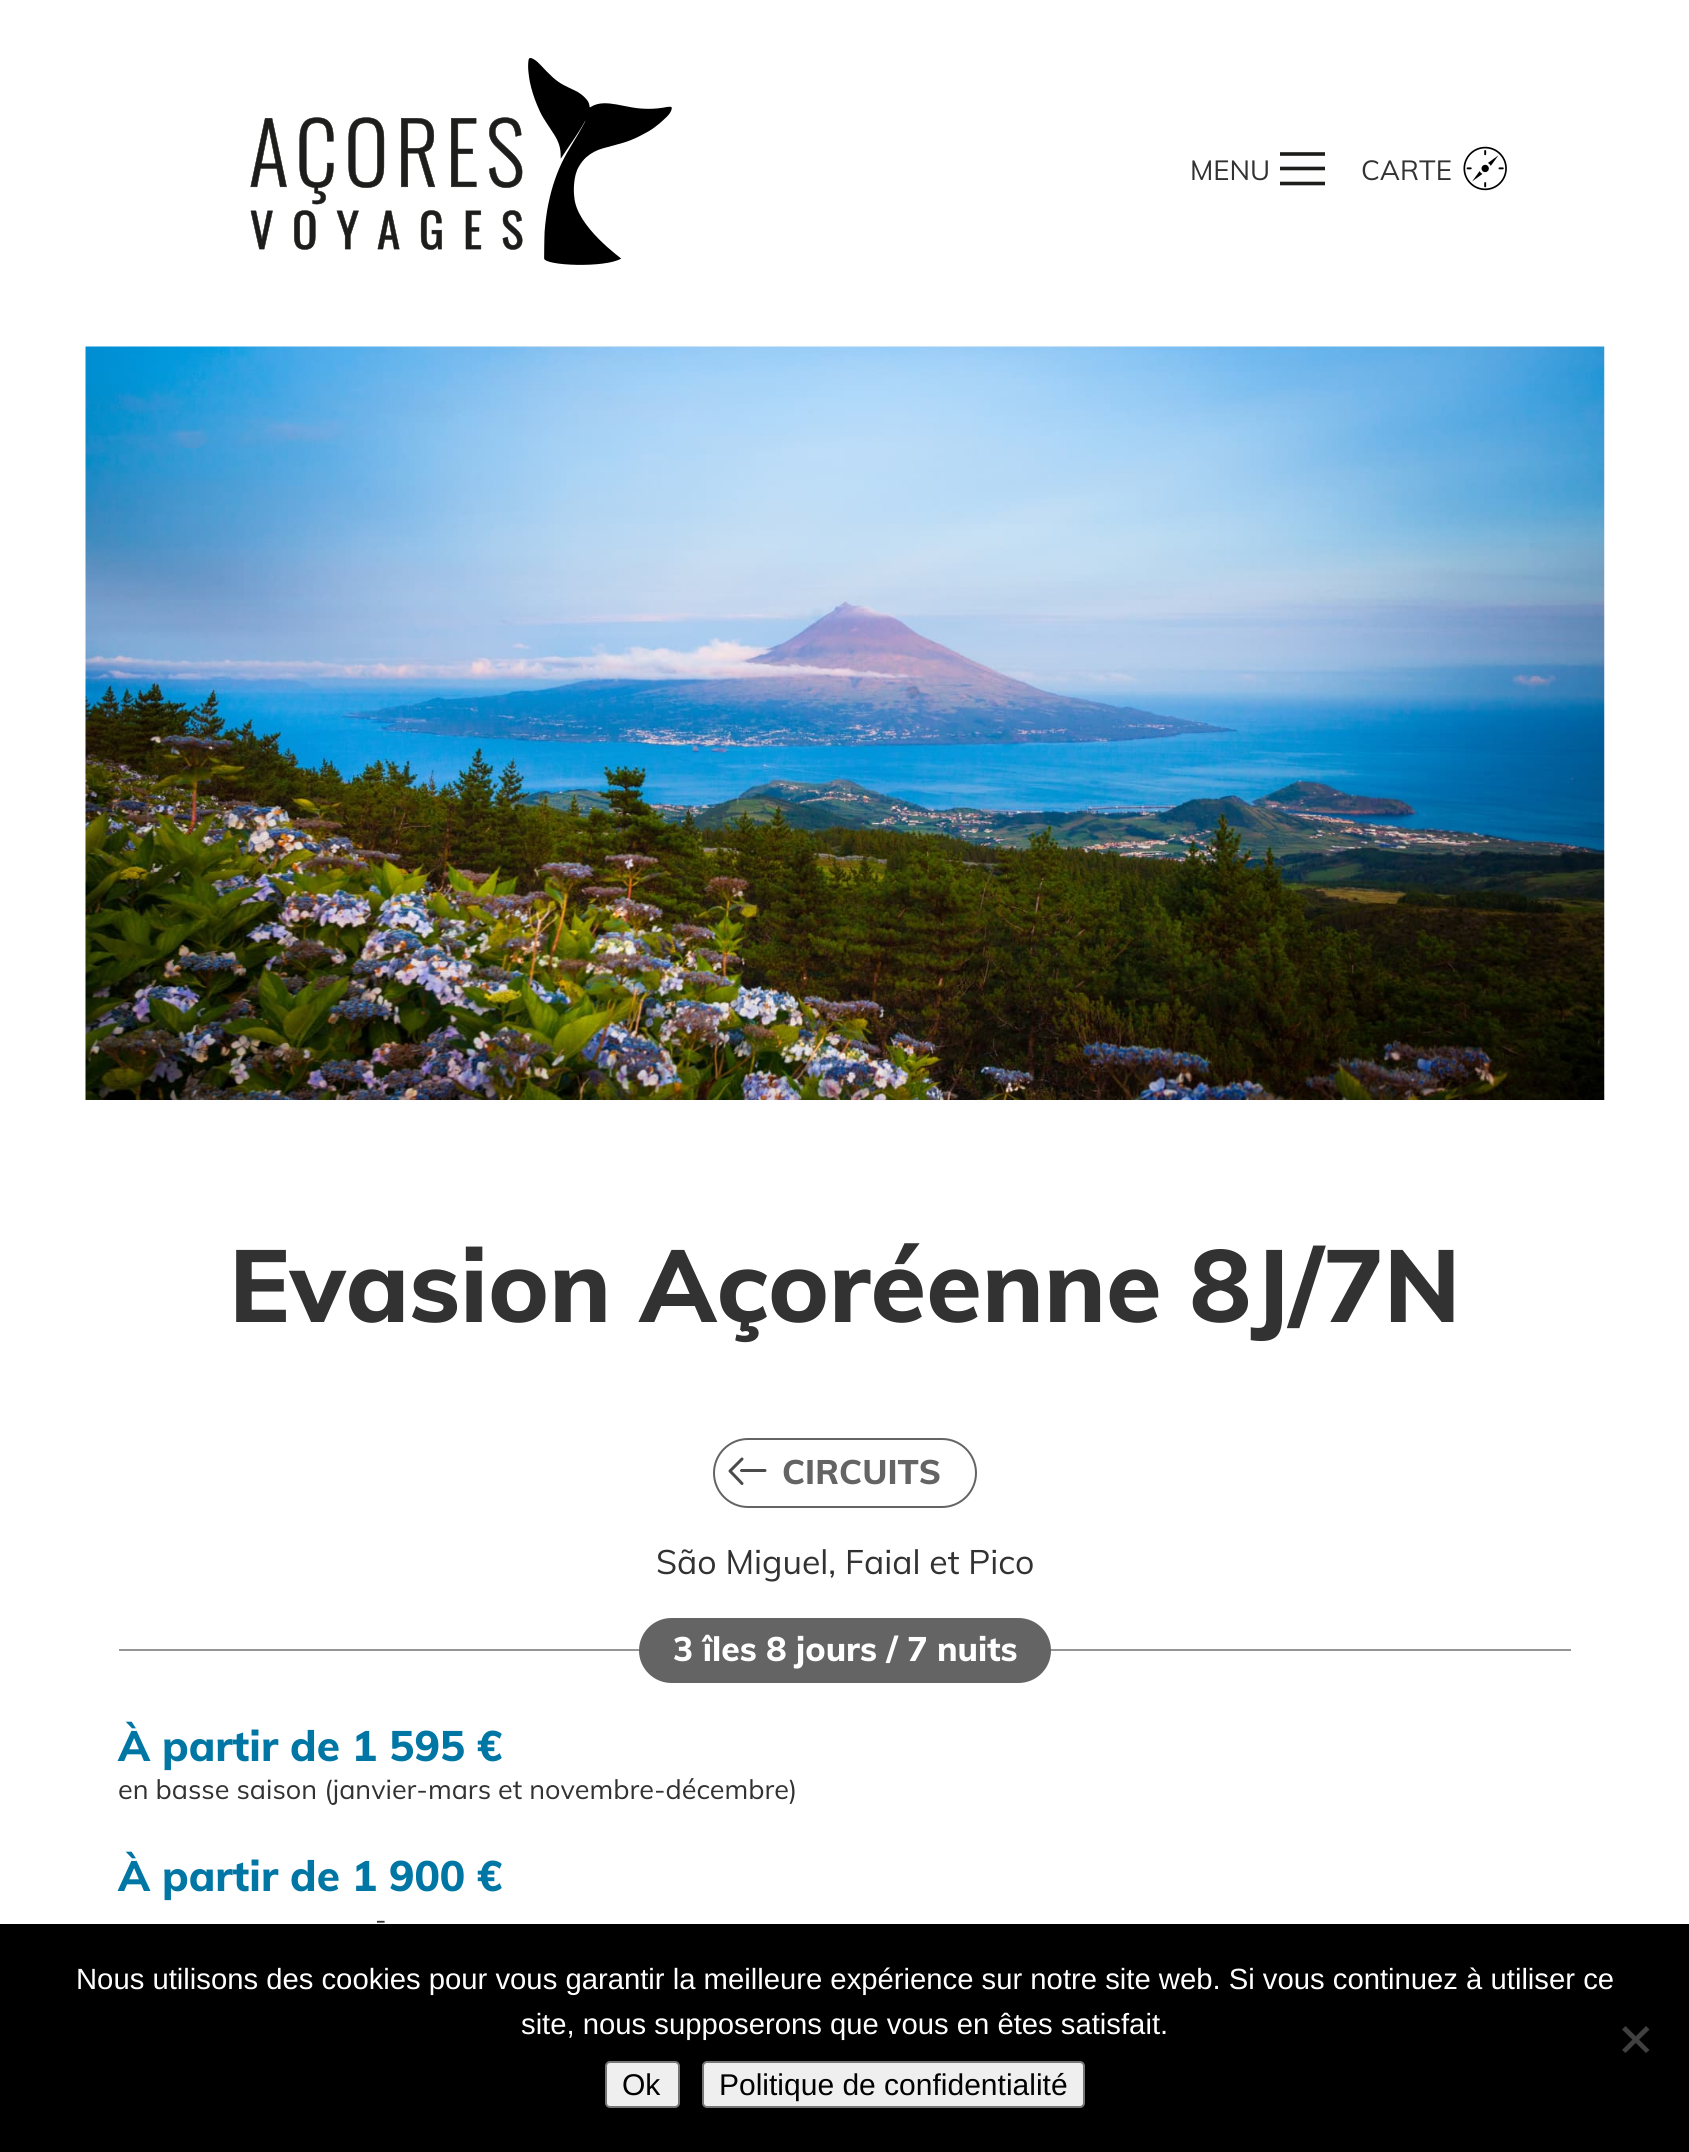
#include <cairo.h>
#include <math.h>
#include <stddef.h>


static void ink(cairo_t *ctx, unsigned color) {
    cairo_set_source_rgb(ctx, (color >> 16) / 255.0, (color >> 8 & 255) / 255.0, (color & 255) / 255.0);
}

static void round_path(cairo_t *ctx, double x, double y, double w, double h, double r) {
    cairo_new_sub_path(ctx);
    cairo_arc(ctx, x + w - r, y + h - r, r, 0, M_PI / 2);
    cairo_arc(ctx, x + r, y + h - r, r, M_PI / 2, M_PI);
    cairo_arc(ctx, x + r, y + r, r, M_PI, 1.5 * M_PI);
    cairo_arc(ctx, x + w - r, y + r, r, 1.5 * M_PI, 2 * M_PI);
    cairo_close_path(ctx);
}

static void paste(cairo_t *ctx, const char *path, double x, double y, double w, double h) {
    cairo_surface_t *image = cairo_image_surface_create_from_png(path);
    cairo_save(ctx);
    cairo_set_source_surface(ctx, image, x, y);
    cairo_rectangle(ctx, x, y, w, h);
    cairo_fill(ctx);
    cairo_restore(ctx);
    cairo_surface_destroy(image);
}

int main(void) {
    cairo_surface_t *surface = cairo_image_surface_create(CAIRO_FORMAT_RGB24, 1689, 2152);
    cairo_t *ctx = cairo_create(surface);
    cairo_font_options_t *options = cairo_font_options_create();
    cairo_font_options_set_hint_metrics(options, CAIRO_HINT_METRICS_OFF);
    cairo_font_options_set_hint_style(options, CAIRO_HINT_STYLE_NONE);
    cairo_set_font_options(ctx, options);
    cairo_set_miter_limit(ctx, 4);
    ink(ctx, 0xFFFFFF);
    cairo_paint(ctx);
    paste(ctx, "media/1.png", 250, 58, 422, 207);
    cairo_select_font_face(ctx, "Muli", CAIRO_FONT_SLANT_NORMAL, CAIRO_FONT_WEIGHT_NORMAL);
    cairo_set_font_size(ctx, 27.5);
    ink(ctx, 0x323232);
    cairo_move_to(ctx, 1190, 180);
    cairo_show_text(ctx, "MENU");
    cairo_new_path(ctx);
    cairo_move_to(ctx, 1280, 154);
    cairo_line_to(ctx, 1325, 154);
    cairo_move_to(ctx, 1280, 168.5);
    cairo_line_to(ctx, 1325, 168.5);
    cairo_move_to(ctx, 1280, 183.5);
    cairo_line_to(ctx, 1325, 183.5);
    ink(ctx, 0x1D1D1B);
    cairo_set_line_width(ctx, 3.6);
    cairo_stroke(ctx);
    ink(ctx, 0x323232);
    cairo_move_to(ctx, 1361, 180);
    cairo_show_text(ctx, "CARTE");
    paste(ctx, "media/2.png", 1463, 146, 44, 45);
    paste(ctx, "media/3.png", 85, 346, 1520, 754);
    cairo_select_font_face(ctx, "Muli ExtraBold", CAIRO_FONT_SLANT_NORMAL, CAIRO_FONT_WEIGHT_NORMAL);
    cairo_set_font_size(ctx, 101.25);
    cairo_move_to(ctx, 229, 1322);
    cairo_show_text(ctx, "Evasion Açoréenne 8J/7N");
    cairo_new_path(ctx);
    cairo_move_to(ctx, 765, 1470.5);
    cairo_line_to(ctx, 741.5, 1470.5);
    cairo_move_to(ctx, 742, 1483.5);
    cairo_line_to(ctx, 730, 1471);
    cairo_line_to(ctx, 742, 1459);
    ink(ctx, 0x4B4B4B);
    cairo_set_line_width(ctx, 3);
    cairo_set_line_cap(ctx, CAIRO_LINE_CAP_ROUND);
    cairo_set_line_join(ctx, CAIRO_LINE_JOIN_ROUND);
    cairo_stroke(ctx);
    round_path(ctx, 714, 1439, 262, 68, 34);
    ink(ctx, 0x646464);
    cairo_set_line_width(ctx, 2);
    cairo_set_line_cap(ctx, CAIRO_LINE_CAP_BUTT);
    cairo_set_line_join(ctx, CAIRO_LINE_JOIN_MITER);
    cairo_stroke(ctx);
    cairo_set_font_size(ctx, 33.75);
    cairo_move_to(ctx, 782, 1484);
    cairo_show_text(ctx, "CIRCUITS");
    cairo_select_font_face(ctx, "Muli", CAIRO_FONT_SLANT_NORMAL, CAIRO_FONT_WEIGHT_NORMAL);
    ink(ctx, 0x323232);
    cairo_move_to(ctx, 656, 1574);
    cairo_show_text(ctx, "São Miguel, Faial et Pico");
    ink(ctx, 0x969696);
    cairo_rectangle(ctx, 119, 1649, 1452, 2);
    cairo_fill(ctx);
    ink(ctx, 0x646464);
    round_path(ctx, 639, 1618, 412, 65, 32.5);
    cairo_fill(ctx);
    cairo_select_font_face(ctx, "Muli ExtraBold", CAIRO_FONT_SLANT_NORMAL, CAIRO_FONT_WEIGHT_NORMAL);
    ink(ctx, 0xFFFFFF);
    cairo_move_to(ctx, 673, 1661);
    cairo_show_text(ctx, "3 îles 8 jours / 7 nuits");
    cairo_set_font_size(ctx, 42.25);
    ink(ctx, 0x0076A5);
    cairo_move_to(ctx, 118, 1761);
    cairo_show_text(ctx, "À partir de 1 595 €");
    cairo_select_font_face(ctx, "Muli", CAIRO_FONT_SLANT_NORMAL, CAIRO_FONT_WEIGHT_NORMAL);
    cairo_set_font_size(ctx, 27);
    ink(ctx, 0x323232);
    cairo_move_to(ctx, 118, 1799);
    cairo_show_text(ctx, "en basse saison (janvier-mars et novembre-décembre)");
    cairo_select_font_face(ctx, "Muli ExtraBold", CAIRO_FONT_SLANT_NORMAL, CAIRO_FONT_WEIGHT_NORMAL);
    cairo_set_font_size(ctx, 42.25);
    ink(ctx, 0x0076A5);
    cairo_move_to(ctx, 118, 1891);
    cairo_show_text(ctx, "À partir de 1 900 €");
    cairo_select_font_face(ctx, "Muli", CAIRO_FONT_SLANT_NORMAL, CAIRO_FONT_WEIGHT_NORMAL);
    cairo_set_font_size(ctx, 27);
    ink(ctx, 0x323232);
    cairo_move_to(ctx, 375, 1929);
    cairo_show_text(ctx, "-");
    ink(ctx, 0x000000);
    cairo_rectangle(ctx, 0, 1924, 1689, 228);
    cairo_fill(ctx);
    cairo_select_font_face(ctx, "Liberation Sans", CAIRO_FONT_SLANT_NORMAL, CAIRO_FONT_WEIGHT_NORMAL);
    cairo_set_font_size(ctx, 29.25);
    ink(ctx, 0xFFFFFF);
    cairo_move_to(ctx, 76, 1989);
    cairo_show_text(ctx, "Nous utilisons des cookies pour vous garantir la meilleure expérience sur notre site web. Si vous continuez à utiliser ce");
    cairo_move_to(ctx, 521, 2034);
    cairo_show_text(ctx, "site, nous supposerons que vous en êtes satisfait.");
    ink(ctx, 0x404040);
    cairo_new_path(ctx);
    cairo_move_to(ctx, 1646, 2026);
    cairo_line_to(ctx, 1649.5, 2029.5);
    cairo_line_to(ctx, 1625.5, 2053);
    cairo_line_to(ctx, 1622, 2050);
    cairo_close_path(ctx);
    cairo_fill(ctx);
    cairo_new_path(ctx);
    cairo_move_to(ctx, 1622, 2029.5);
    cairo_line_to(ctx, 1625.5, 2026);
    cairo_line_to(ctx, 1649.5, 2050);
    cairo_line_to(ctx, 1646, 2053);
    cairo_close_path(ctx);
    cairo_fill(ctx);
    ink(ctx, 0xEFEFEF);
    round_path(ctx, 606, 2062, 73, 45, 4);
    cairo_fill_preserve(ctx);
    ink(ctx, 0x767676);
    cairo_stroke(ctx);
    cairo_set_font_size(ctx, 30);
    ink(ctx, 0x000000);
    cairo_move_to(ctx, 622, 2095);
    cairo_show_text(ctx, "Ok");
    ink(ctx, 0xEFEFEF);
    round_path(ctx, 703, 2062, 381, 45, 4);
    cairo_fill_preserve(ctx);
    ink(ctx, 0x767676);
    cairo_stroke(ctx);
    ink(ctx, 0x000000);
    cairo_move_to(ctx, 719, 2095);
    cairo_show_text(ctx, "Politique de confidentialité");
    cairo_surface_write_to_png(surface, "image.png");
    cairo_font_options_destroy(options);
    cairo_destroy(ctx);
    cairo_surface_destroy(surface);
    return 0;
}
